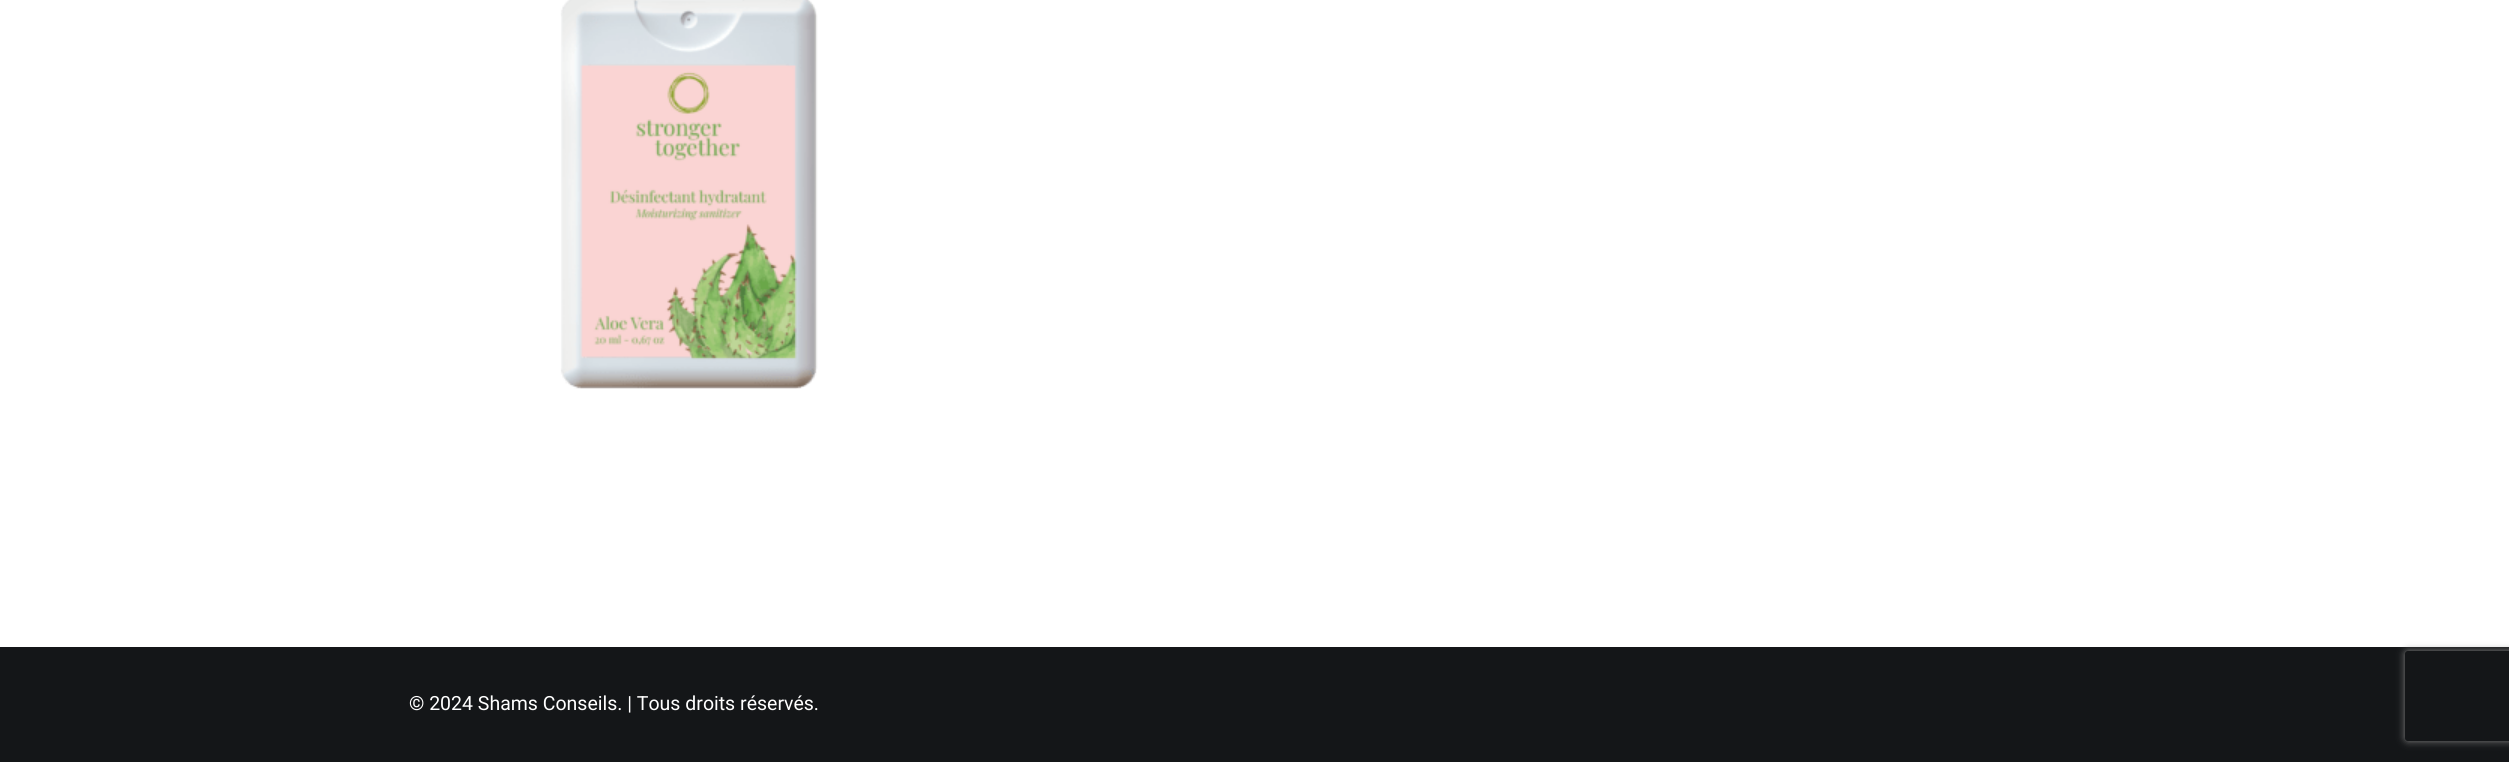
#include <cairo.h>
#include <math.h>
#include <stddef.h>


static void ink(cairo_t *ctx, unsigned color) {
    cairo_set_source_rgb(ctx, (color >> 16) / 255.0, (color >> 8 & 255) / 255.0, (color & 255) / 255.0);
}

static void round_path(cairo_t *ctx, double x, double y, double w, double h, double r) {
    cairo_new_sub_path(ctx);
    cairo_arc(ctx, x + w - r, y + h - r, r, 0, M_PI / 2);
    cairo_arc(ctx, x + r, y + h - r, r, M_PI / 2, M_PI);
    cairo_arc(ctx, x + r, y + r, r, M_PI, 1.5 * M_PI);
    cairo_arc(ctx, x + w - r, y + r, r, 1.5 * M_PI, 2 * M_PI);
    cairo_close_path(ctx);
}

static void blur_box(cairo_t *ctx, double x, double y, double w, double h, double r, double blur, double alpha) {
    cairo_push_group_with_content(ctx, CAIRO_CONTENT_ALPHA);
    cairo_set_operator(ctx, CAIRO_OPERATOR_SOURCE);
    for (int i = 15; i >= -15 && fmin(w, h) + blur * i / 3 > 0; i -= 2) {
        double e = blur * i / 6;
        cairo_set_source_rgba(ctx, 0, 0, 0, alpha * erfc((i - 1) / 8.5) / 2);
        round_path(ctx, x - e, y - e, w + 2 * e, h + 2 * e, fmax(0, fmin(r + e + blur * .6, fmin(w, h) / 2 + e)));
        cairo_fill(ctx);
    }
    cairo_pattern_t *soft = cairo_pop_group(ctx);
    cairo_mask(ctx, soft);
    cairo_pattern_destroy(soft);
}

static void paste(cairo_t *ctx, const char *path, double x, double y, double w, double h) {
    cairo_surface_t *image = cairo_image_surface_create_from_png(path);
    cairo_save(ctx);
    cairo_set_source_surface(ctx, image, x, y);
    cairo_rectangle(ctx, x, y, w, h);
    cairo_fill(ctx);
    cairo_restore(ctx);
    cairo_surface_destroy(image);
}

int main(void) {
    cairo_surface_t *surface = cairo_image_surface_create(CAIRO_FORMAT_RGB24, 2509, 762);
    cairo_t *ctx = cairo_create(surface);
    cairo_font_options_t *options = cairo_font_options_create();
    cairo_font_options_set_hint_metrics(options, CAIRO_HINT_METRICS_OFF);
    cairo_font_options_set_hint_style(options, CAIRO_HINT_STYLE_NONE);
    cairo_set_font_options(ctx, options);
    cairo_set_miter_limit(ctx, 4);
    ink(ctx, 0x141618);
    cairo_paint(ctx);
    ink(ctx, 0xFFFFFF);
    cairo_rectangle(ctx, 0, 0, 2509, 647);
    cairo_fill(ctx);
    paste(ctx, "media/1.png", 560, 0, 258, 389);
    cairo_select_font_face(ctx, "Roboto", CAIRO_FONT_SLANT_NORMAL, CAIRO_FONT_WEIGHT_NORMAL);
    cairo_set_font_size(ctx, 19.5);
    cairo_move_to(ctx, 409, 710);
    cairo_show_text(ctx, "© 2024 Shams Conseils. | Tous droits réservés.");
    cairo_save(ctx);
    cairo_set_fill_rule(ctx, CAIRO_FILL_RULE_EVEN_ODD);
    cairo_new_path(ctx);
    cairo_move_to(ctx, 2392, 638);
    cairo_line_to(ctx, 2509, 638);
    cairo_line_to(ctx, 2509, 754);
    cairo_line_to(ctx, 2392, 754);
    cairo_close_path(ctx);
    cairo_move_to(ctx, 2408, 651);
    cairo_line_to(ctx, 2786, 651);
    cairo_curve_to(ctx, 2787.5, 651, 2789, 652.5, 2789, 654);
    cairo_line_to(ctx, 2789, 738);
    cairo_curve_to(ctx, 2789, 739.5, 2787.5, 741, 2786, 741);
    cairo_line_to(ctx, 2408, 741);
    cairo_curve_to(ctx, 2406.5, 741, 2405, 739.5, 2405, 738);
    cairo_line_to(ctx, 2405, 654);
    cairo_curve_to(ctx, 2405, 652.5, 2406.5, 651, 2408, 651);
    cairo_close_path(ctx);
    cairo_clip(ctx);
    ink(ctx, 0x808080);
    blur_box(ctx, 2405, 651, 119, 90, 3, 4, 1);
    cairo_restore(ctx);
    cairo_surface_write_to_png(surface, "image.png");
    cairo_font_options_destroy(options);
    cairo_destroy(ctx);
    cairo_surface_destroy(surface);
    return 0;
}
